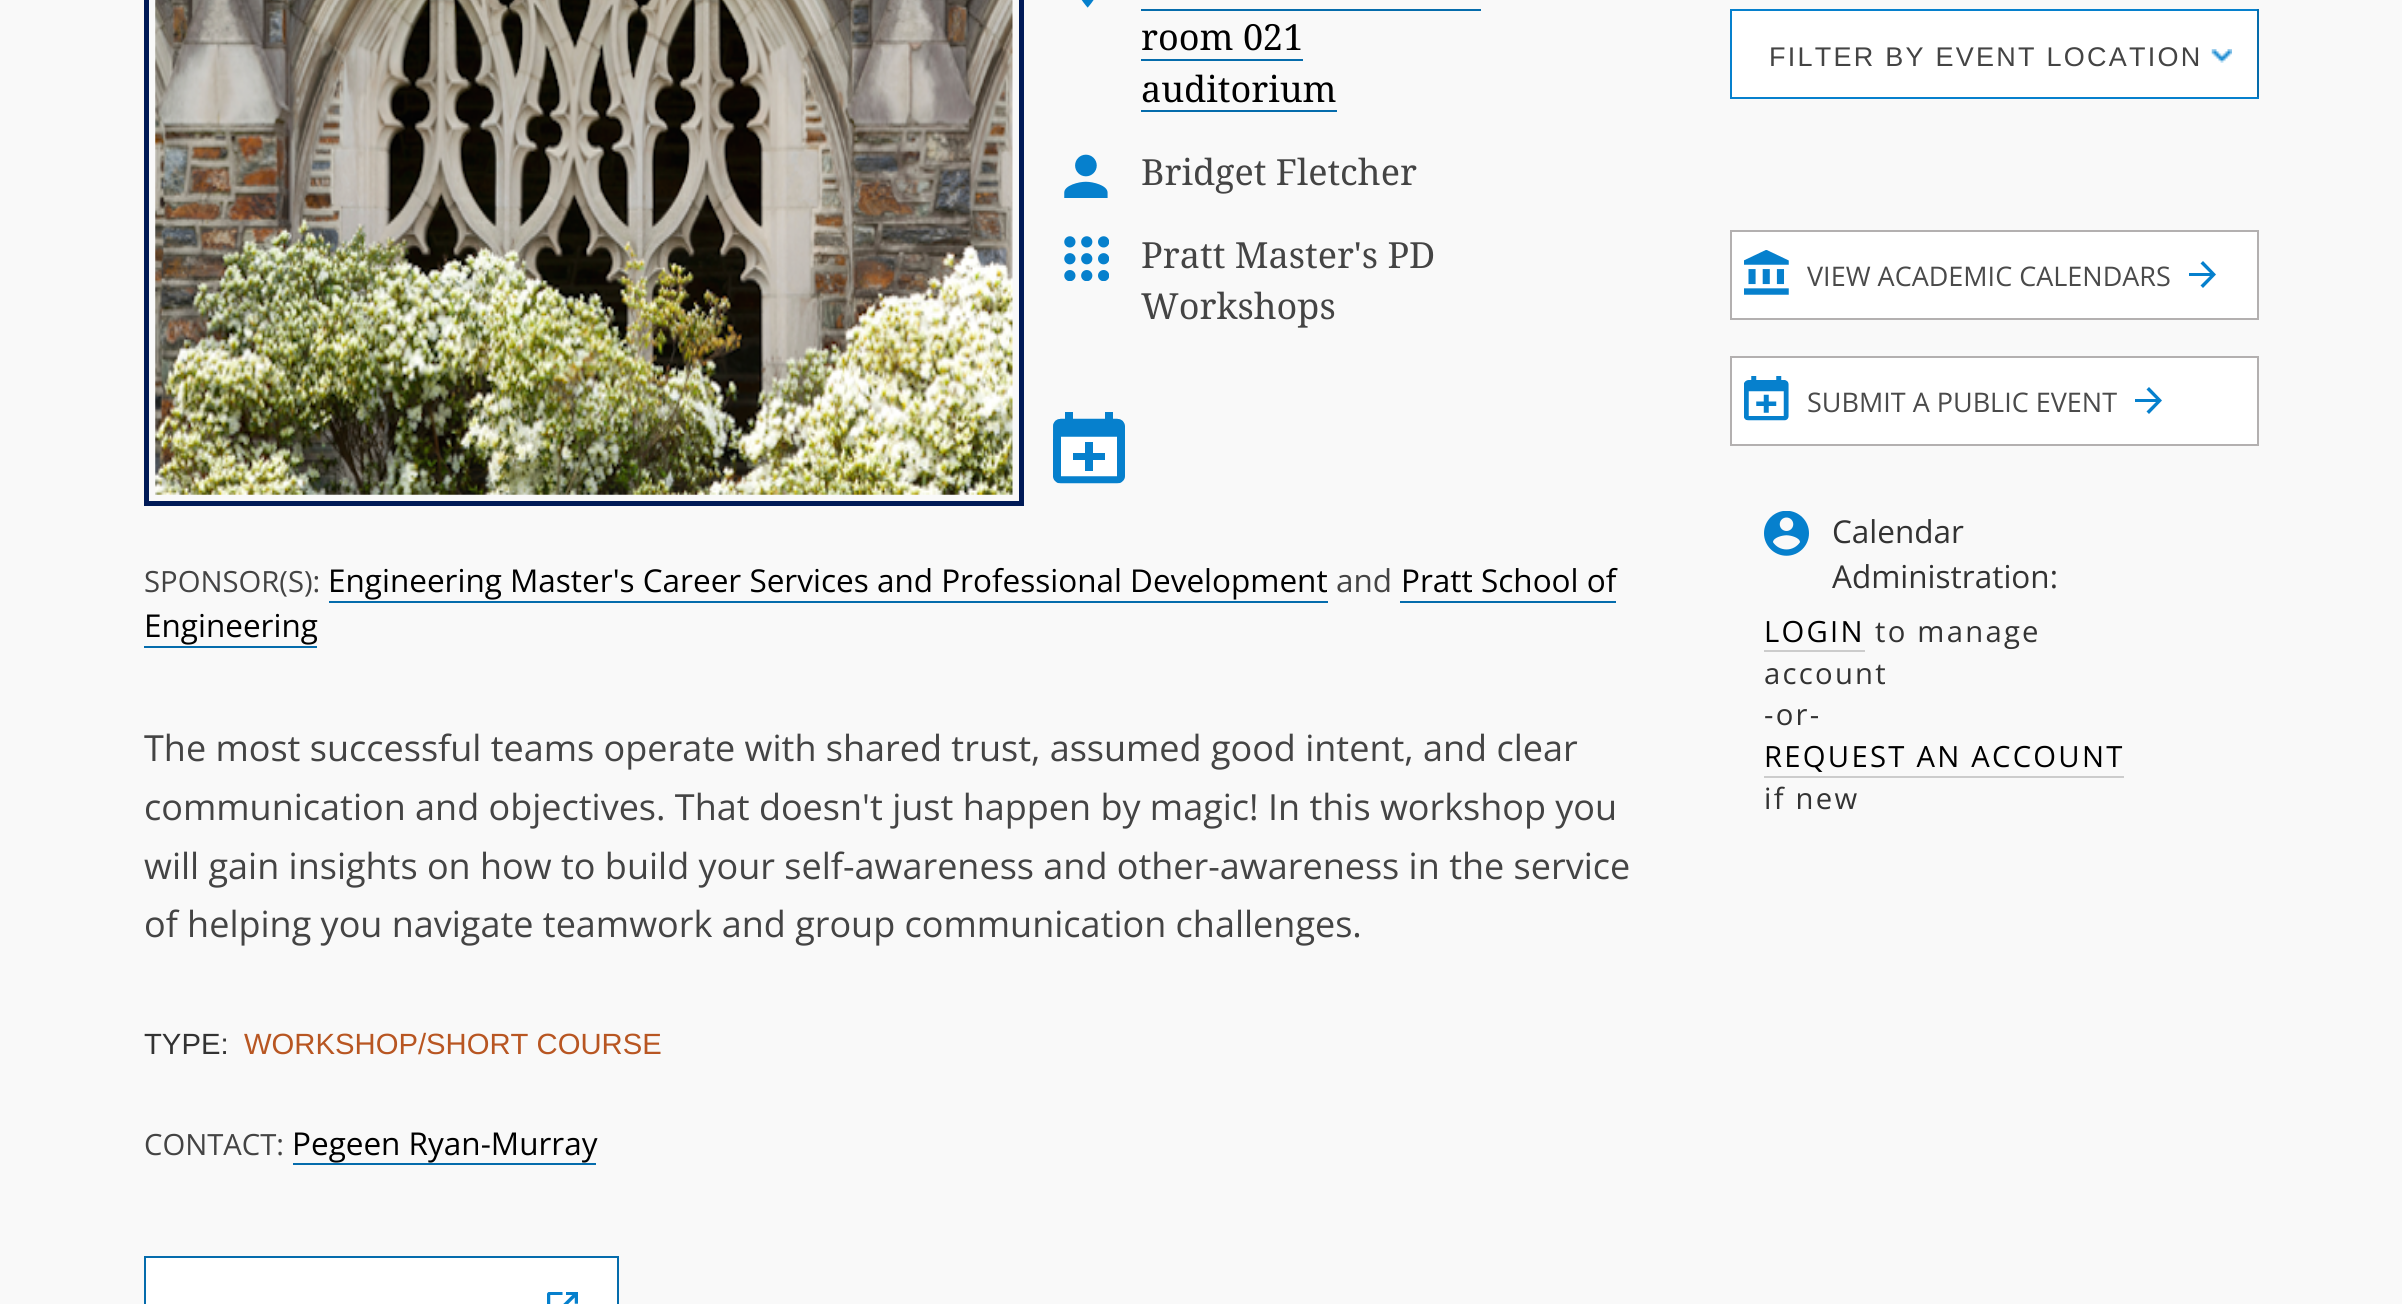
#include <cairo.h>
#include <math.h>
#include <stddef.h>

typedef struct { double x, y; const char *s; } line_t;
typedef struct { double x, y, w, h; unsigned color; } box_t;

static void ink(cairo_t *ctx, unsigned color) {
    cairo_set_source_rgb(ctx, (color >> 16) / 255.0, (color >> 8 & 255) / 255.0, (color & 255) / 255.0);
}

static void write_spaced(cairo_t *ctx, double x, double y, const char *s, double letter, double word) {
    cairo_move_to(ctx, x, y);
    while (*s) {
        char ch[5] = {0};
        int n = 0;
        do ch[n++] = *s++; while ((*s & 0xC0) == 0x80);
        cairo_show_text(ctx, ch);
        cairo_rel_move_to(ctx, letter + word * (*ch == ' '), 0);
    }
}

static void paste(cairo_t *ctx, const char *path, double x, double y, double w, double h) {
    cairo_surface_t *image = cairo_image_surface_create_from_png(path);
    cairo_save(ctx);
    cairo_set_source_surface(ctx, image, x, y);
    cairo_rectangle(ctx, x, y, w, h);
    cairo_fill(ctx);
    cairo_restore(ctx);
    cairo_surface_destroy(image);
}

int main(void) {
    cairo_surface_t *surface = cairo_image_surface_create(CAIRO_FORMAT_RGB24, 2402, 1304);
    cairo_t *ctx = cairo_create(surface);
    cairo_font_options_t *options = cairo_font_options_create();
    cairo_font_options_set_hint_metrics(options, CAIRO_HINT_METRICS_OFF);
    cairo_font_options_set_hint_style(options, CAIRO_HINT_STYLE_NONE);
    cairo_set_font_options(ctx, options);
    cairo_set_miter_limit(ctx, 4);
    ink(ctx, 0xF9F9F9);
    cairo_paint(ctx);
    cairo_rectangle(ctx, 146.5, -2.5, 875, 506);
    ink(ctx, 0x001A57);
    cairo_set_line_width(ctx, 5);
    cairo_stroke(ctx);
    paste(ctx, "media/1.png", 155, 0, 858, 495);
    paste(ctx, "media/2.png", 1081, 0, 13, 8);
    cairo_select_font_face(ctx, "Droid Serif", CAIRO_FONT_SLANT_NORMAL, CAIRO_FONT_WEIGHT_NORMAL);
    cairo_set_font_size(ctx, 36);
    ink(ctx, 0x000000);
    cairo_move_to(ctx, 1141, 50);
    cairo_show_text(ctx, "room 021");
    ink(ctx, 0x056CAC);
    cairo_rectangle(ctx, 1141, 9, 340, 2);
    cairo_fill(ctx);
    cairo_rectangle(ctx, 1141, 59, 162, 2);
    cairo_fill(ctx);
    ink(ctx, 0x000000);
    cairo_move_to(ctx, 1141, 102);
    cairo_show_text(ctx, "auditorium");
    ink(ctx, 0x056CAC);
    cairo_rectangle(ctx, 1141, 110, 196, 2);
    cairo_fill(ctx);
    paste(ctx, "media/3.png", 1064, 154, 44, 44);
    ink(ctx, 0x444444);
    cairo_move_to(ctx, 1141, 185);
    cairo_show_text(ctx, "Bridget Fletcher");
    paste(ctx, "media/4.png", 1064, 236, 45, 45);
    cairo_move_to(ctx, 1141, 268);
    cairo_show_text(ctx, "Pratt Master's PD");
    cairo_move_to(ctx, 1141, 319);
    cairo_show_text(ctx, "Workshops");
    paste(ctx, "media/5.png", 1053, 412, 72, 72);
    cairo_select_font_face(ctx, "Open Sans", CAIRO_FONT_SLANT_NORMAL, CAIRO_FONT_WEIGHT_NORMAL);
    cairo_set_font_size(ctx, 29.25);
    cairo_move_to(ctx, 144, 592);
    cairo_show_text(ctx, "SPONSOR(S):");
    cairo_set_font_size(ctx, 31.5);
    ink(ctx, 0x000000);
    cairo_move_to(ctx, 328, 592);
    cairo_show_text(ctx, "Engineering Master's Career Services and Professional Development");
    ink(ctx, 0x056CAC);
    cairo_rectangle(ctx, 329, 601, 999, 2);
    cairo_fill(ctx);
    ink(ctx, 0x444444);
    cairo_move_to(ctx, 1336, 592);
    cairo_show_text(ctx, "and");
    ink(ctx, 0x000000);
    cairo_move_to(ctx, 1401, 592);
    cairo_show_text(ctx, "Pratt School of");
    ink(ctx, 0x056CAC);
    cairo_rectangle(ctx, 1400, 601, 216, 2);
    cairo_fill(ctx);
    ink(ctx, 0x000000);
    cairo_move_to(ctx, 144, 637);
    cairo_show_text(ctx, "Engineering");
    ink(ctx, 0x056CAC);
    cairo_rectangle(ctx, 144, 646, 173, 2);
    cairo_fill(ctx);
    cairo_set_font_size(ctx, 36);
    ink(ctx, 0x444444);
    {
        static const line_t items[] = {
            {144, 761, "The most successful teams operate with shared trust, assumed good intent, and clear"},
            {144, 820, "communication and objectives. That doesn't just happen by magic! In this workshop you"},
            {144, 879, "will gain insights on how to build your self-awareness and other-awareness in the service"},
            {144, 937, "of helping you navigate teamwork and group communication challenges."},
        };
        for (size_t i = 0; i < sizeof items / sizeof *items; i++) {
            cairo_move_to(ctx, items[i].x, items[i].y);
            cairo_show_text(ctx, items[i].s);
        }
    }
    cairo_select_font_face(ctx, "Liberation Sans", CAIRO_FONT_SLANT_NORMAL, CAIRO_FONT_WEIGHT_NORMAL);
    cairo_set_font_size(ctx, 29.25);
    ink(ctx, 0x333333);
    cairo_move_to(ctx, 144, 1054);
    cairo_show_text(ctx, "TYPE:");
    ink(ctx, 0xB85622);
    cairo_move_to(ctx, 244, 1054);
    cairo_show_text(ctx, "WORKSHOP/SHORT COURSE");
    cairo_select_font_face(ctx, "Open Sans", CAIRO_FONT_SLANT_NORMAL, CAIRO_FONT_WEIGHT_NORMAL);
    ink(ctx, 0x444444);
    cairo_move_to(ctx, 144, 1155);
    cairo_show_text(ctx, "CONTACT:");
    cairo_set_font_size(ctx, 31.5);
    ink(ctx, 0x000000);
    cairo_move_to(ctx, 292, 1155);
    cairo_show_text(ctx, "Pegeen Ryan-Murray");
    ink(ctx, 0x056CAC);
    cairo_rectangle(ctx, 293, 1163, 303, 2);
    cairo_fill(ctx);
    ink(ctx, 0xFFFFFF);
    cairo_rectangle(ctx, 145, 1257, 473, 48);
    cairo_fill_preserve(ctx);
    ink(ctx, 0x056CAC);
    cairo_set_line_width(ctx, 2);
    cairo_stroke(ctx);
    paste(ctx, "media/6.png", 547, 1292, 31, 12);
    {
        static const box_t items[] = {
            {1732, 11, 525, 86, 0xFFFFFF},
            {1730, 9, 529, 2, 0x0680CD},
            {2257, 9, 2, 90, 0x056CAC},
            {1730, 97, 529, 2, 0x0680CD},
            {1730, 9, 2, 90, 0x0680CD},
        };
        for (size_t i = 0; i < sizeof items / sizeof *items; i++) {
            ink(ctx, items[i].color);
            cairo_rectangle(ctx, items[i].x, items[i].y, items[i].w, items[i].h);
            cairo_fill(ctx);
        }
    }
    cairo_select_font_face(ctx, "Liberation Sans", CAIRO_FONT_SLANT_NORMAL, CAIRO_FONT_WEIGHT_NORMAL);
    cairo_set_font_size(ctx, 27);
    ink(ctx, 0x444444);
    write_spaced(ctx, 1769, 66, "FILTER BY EVENT LOCATION", 2.25, 0);
    paste(ctx, "media/7.png", 2211, 49, 21, 14);
    ink(ctx, 0xFFFFFF);
    cairo_rectangle(ctx, 1731, 231, 527, 88);
    cairo_fill_preserve(ctx);
    ink(ctx, 0xB3B0B0);
    cairo_stroke(ctx);
    paste(ctx, "media/8.png", 1744, 250, 45, 45);
    cairo_select_font_face(ctx, "Open Sans", CAIRO_FONT_SLANT_NORMAL, CAIRO_FONT_WEIGHT_NORMAL);
    ink(ctx, 0x4A4A4A);
    cairo_move_to(ctx, 1807, 286);
    cairo_show_text(ctx, "VIEW ACADEMIC CALENDARS");
    ink(ctx, 0x0680CD);
    cairo_set_fill_rule(ctx, CAIRO_FILL_RULE_EVEN_ODD);
    cairo_new_path(ctx);
    cairo_move_to(ctx, 2203, 261);
    cairo_line_to(ctx, 2200.5, 263.5);
    cairo_line_to(ctx, 2210, 273);
    cairo_line_to(ctx, 2189, 273);
    cairo_line_to(ctx, 2189, 276);
    cairo_line_to(ctx, 2210, 276);
    cairo_line_to(ctx, 2200.5, 285.5);
    cairo_line_to(ctx, 2203, 288);
    cairo_line_to(ctx, 2216, 274.5);
    cairo_close_path(ctx);
    cairo_fill(ctx);
    ink(ctx, 0xFFFFFF);
    cairo_rectangle(ctx, 1731, 357, 527, 88);
    cairo_fill_preserve(ctx);
    ink(ctx, 0xB3B0B0);
    cairo_stroke(ctx);
    paste(ctx, "media/9.png", 1744, 376, 45, 45);
    ink(ctx, 0x4A4A4A);
    cairo_move_to(ctx, 1807, 412);
    cairo_show_text(ctx, "SUBMIT A PUBLIC EVENT");
    ink(ctx, 0x0680CD);
    cairo_new_path(ctx);
    cairo_move_to(ctx, 2149, 387);
    cairo_line_to(ctx, 2146.5, 389.5);
    cairo_line_to(ctx, 2156, 399);
    cairo_line_to(ctx, 2135, 399);
    cairo_line_to(ctx, 2135, 402);
    cairo_line_to(ctx, 2156, 402);
    cairo_line_to(ctx, 2146.5, 411.5);
    cairo_line_to(ctx, 2149, 414);
    cairo_line_to(ctx, 2162, 400.5);
    cairo_close_path(ctx);
    cairo_fill(ctx);
    paste(ctx, "media/10.png", 1764, 511, 45, 45);
    cairo_set_font_size(ctx, 31.5);
    ink(ctx, 0x333333);
    cairo_move_to(ctx, 1832, 543);
    cairo_show_text(ctx, "Calendar");
    cairo_move_to(ctx, 1832, 588);
    cairo_show_text(ctx, "Administration:");
    cairo_set_font_size(ctx, 29.25);
    ink(ctx, 0x000000);
    write_spaced(ctx, 1764, 642, "LOGIN", 2.25, 0);
    ink(ctx, 0xCCCCCC);
    cairo_rectangle(ctx, 1764, 650, 101, 2);
    cairo_fill(ctx);
    ink(ctx, 0x333333);
    {
        static const line_t items[] = {
            {1875, 642, "to manage"},
            {1764, 684, "account"},
            {1764, 725, "-or-"},
        };
        for (size_t i = 0; i < sizeof items / sizeof *items; i++) {
            write_spaced(ctx, items[i].x, items[i].y, items[i].s, 2.25, 0);
        }
    }
    ink(ctx, 0x000000);
    write_spaced(ctx, 1764, 767, "REQUEST AN ACCOUNT", 2.25, 0);
    ink(ctx, 0xCCCCCC);
    cairo_rectangle(ctx, 1764, 776, 360, 2);
    cairo_fill(ctx);
    ink(ctx, 0x333333);
    write_spaced(ctx, 1764, 809, "if new", 2.25, 0);
    cairo_surface_write_to_png(surface, "image.png");
    cairo_font_options_destroy(options);
    cairo_destroy(ctx);
    cairo_surface_destroy(surface);
    return 0;
}
